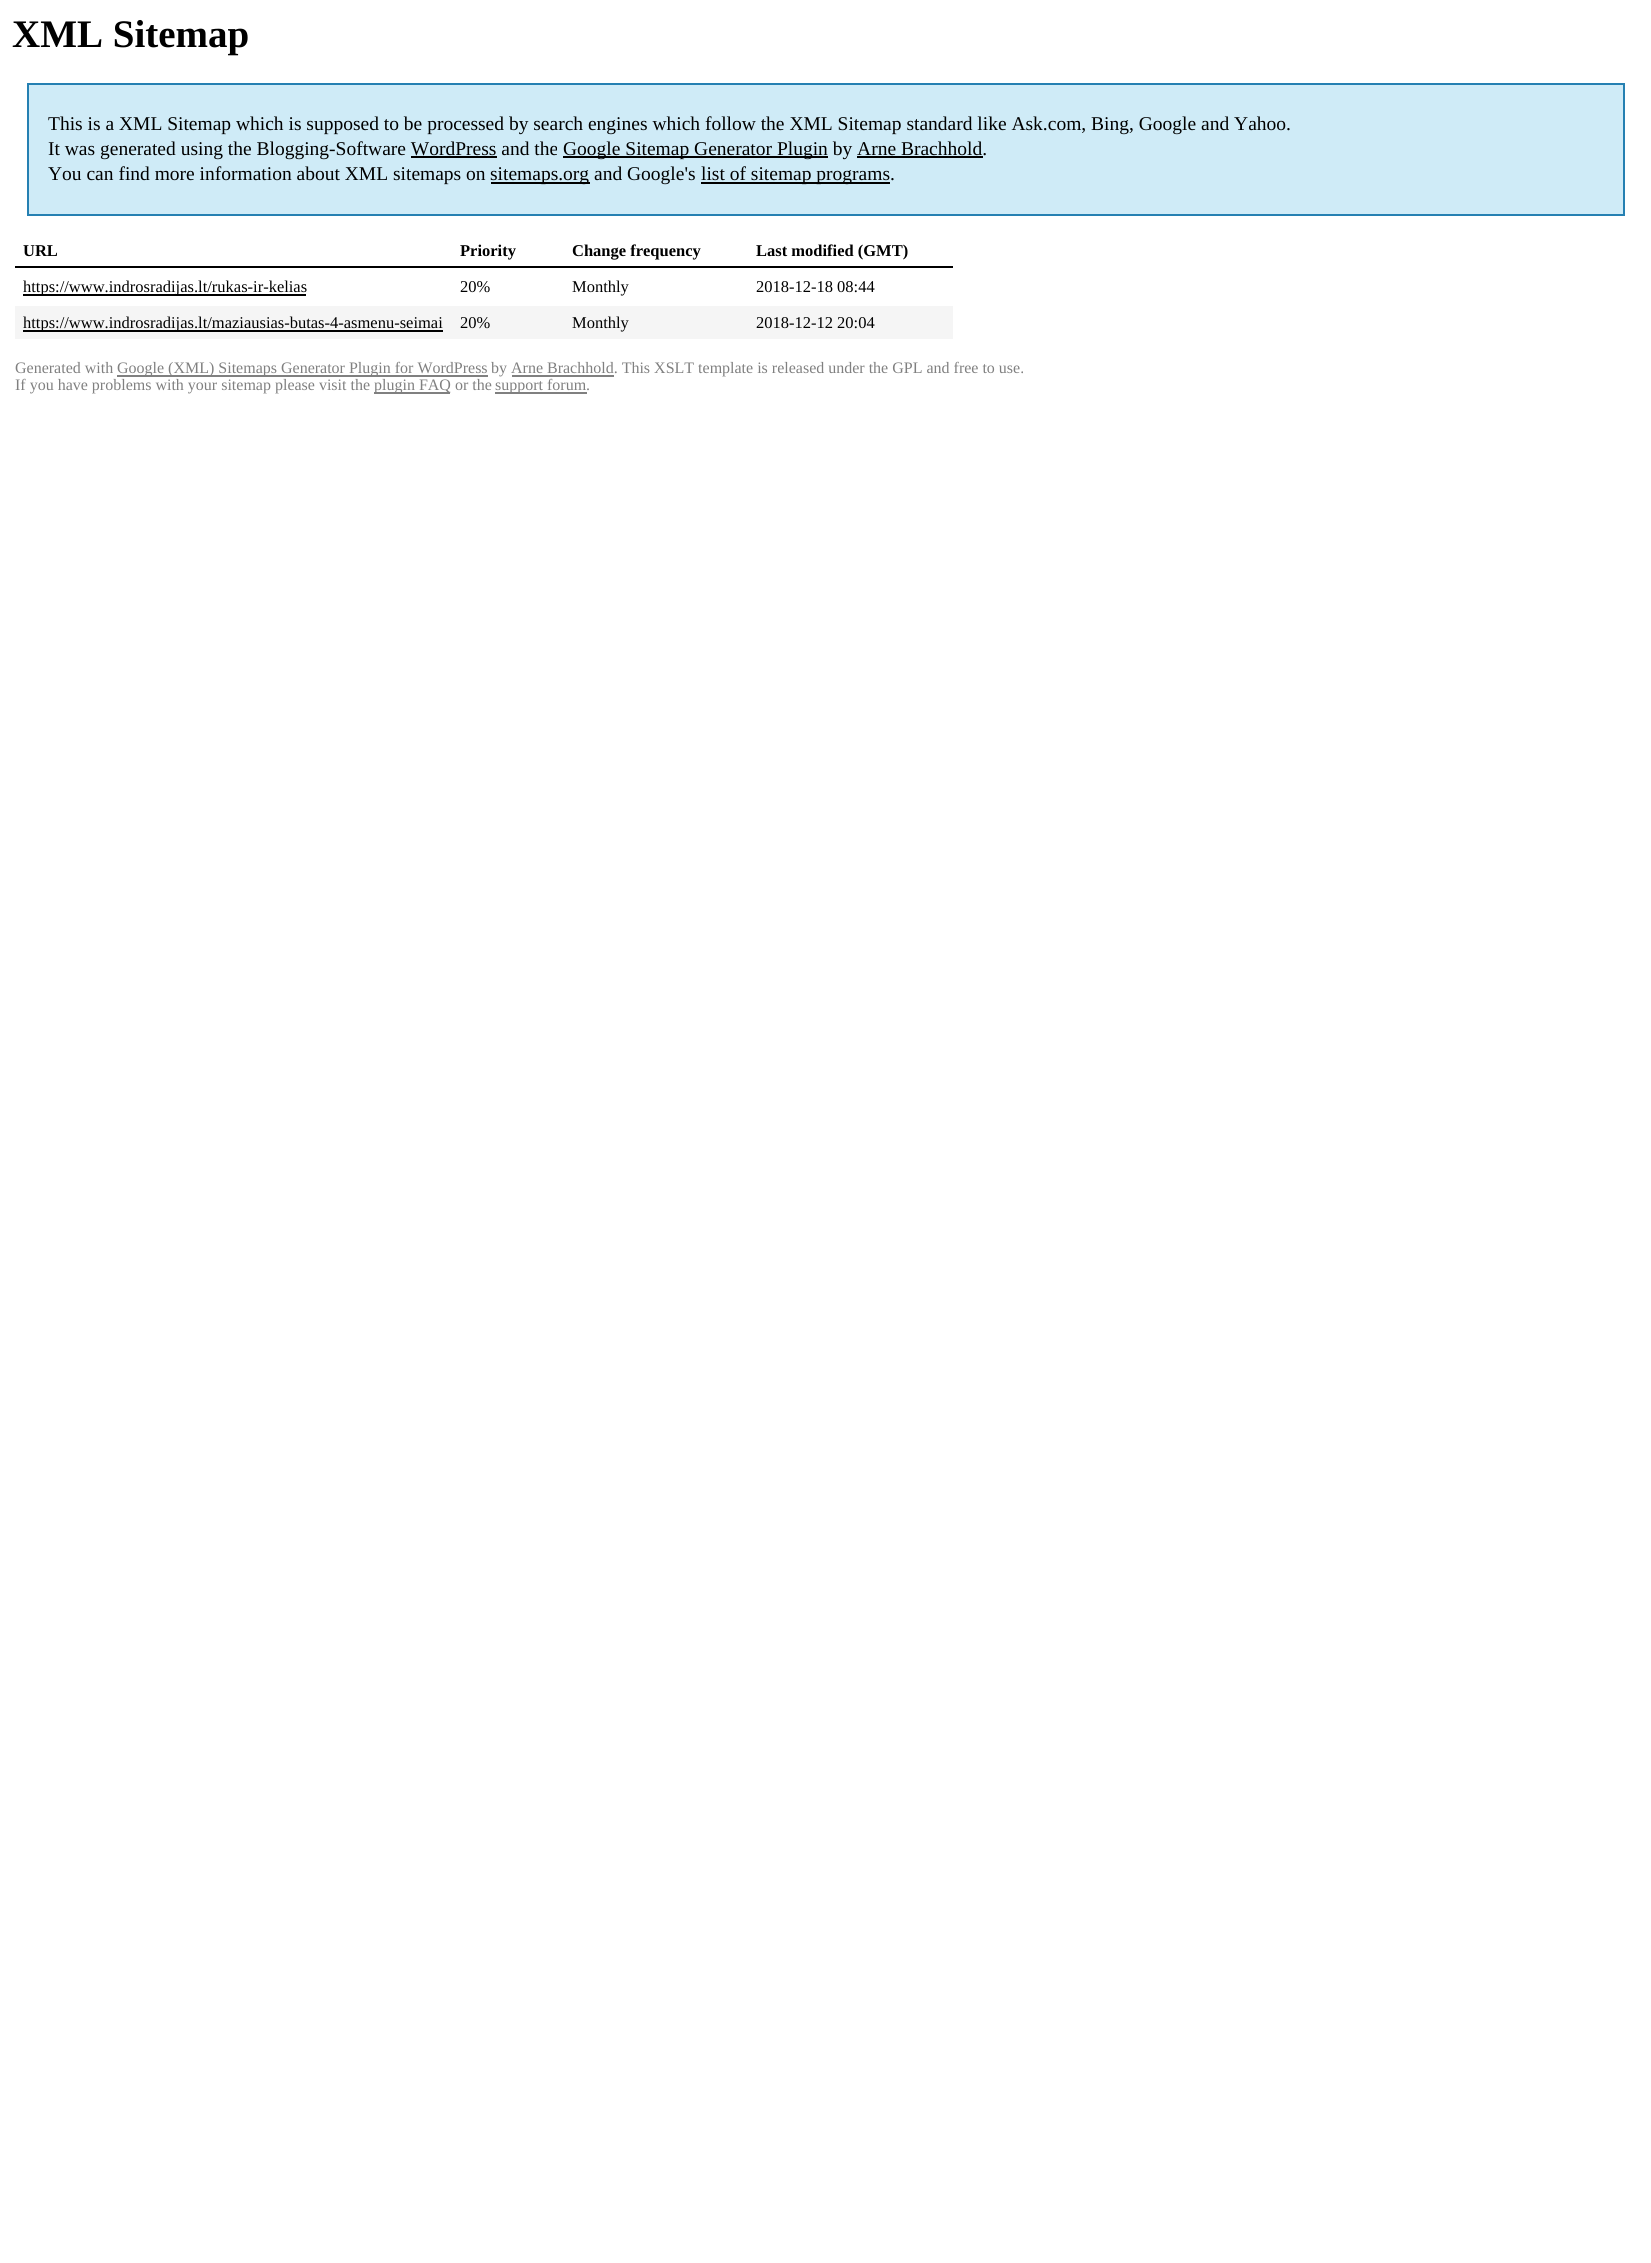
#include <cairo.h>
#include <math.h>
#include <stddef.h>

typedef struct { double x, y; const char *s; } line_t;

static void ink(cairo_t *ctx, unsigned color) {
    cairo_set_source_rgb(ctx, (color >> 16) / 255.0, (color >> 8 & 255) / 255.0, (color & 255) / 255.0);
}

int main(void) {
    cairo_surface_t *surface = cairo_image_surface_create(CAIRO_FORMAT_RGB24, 1651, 2263);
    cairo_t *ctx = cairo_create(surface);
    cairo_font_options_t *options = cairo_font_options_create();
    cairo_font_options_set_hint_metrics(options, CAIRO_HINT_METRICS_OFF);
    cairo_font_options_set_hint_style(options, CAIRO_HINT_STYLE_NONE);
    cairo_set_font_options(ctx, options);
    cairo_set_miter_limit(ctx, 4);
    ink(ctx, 0xFFFFFF);
    cairo_paint(ctx);
    cairo_select_font_face(ctx, "Liberation Serif", CAIRO_FONT_SLANT_NORMAL, CAIRO_FONT_WEIGHT_BOLD);
    cairo_set_font_size(ctx, 39);
    ink(ctx, 0x000000);
    cairo_move_to(ctx, 12, 47);
    cairo_show_text(ctx, "XML Sitemap");
    ink(ctx, 0xCFEBF7);
    cairo_rectangle(ctx, 28, 84, 1596, 131);
    cairo_fill_preserve(ctx);
    ink(ctx, 0x2580B2);
    cairo_stroke(ctx);
    cairo_select_font_face(ctx, "Liberation Serif", CAIRO_FONT_SLANT_NORMAL, CAIRO_FONT_WEIGHT_NORMAL);
    cairo_set_font_size(ctx, 19.5);
    ink(ctx, 0x000000);
    cairo_move_to(ctx, 48, 130);
    cairo_show_text(ctx, "This is a XML Sitemap which is supposed to be processed by search engines which follow the XML Sitemap standard like Ask.com, Bing, Google and Yahoo.");
    cairo_move_to(ctx, 48, 155);
    cairo_show_text(ctx, "It was generated using the Blogging-Software WordPress and the");
    cairo_rectangle(ctx, 563, 156, 265, 2);
    cairo_fill(ctx);
    cairo_move_to(ctx, 563, 155);
    cairo_show_text(ctx, "Google Sitemap Generator Plugin by Arne Brachhold.");
    cairo_rectangle(ctx, 411, 156, 86, 2);
    cairo_fill(ctx);
    cairo_rectangle(ctx, 857, 156, 126, 2);
    cairo_fill(ctx);
    cairo_move_to(ctx, 48, 180);
    cairo_show_text(ctx, "You can find more information about XML sitemaps on");
    cairo_rectangle(ctx, 491, 182, 99, 2);
    cairo_fill(ctx);
    cairo_move_to(ctx, 490, 180);
    cairo_show_text(ctx, "sitemaps.org and Google's");
    cairo_rectangle(ctx, 701, 182, 189, 2);
    cairo_fill(ctx);
    cairo_move_to(ctx, 701, 180);
    cairo_show_text(ctx, "list of sitemap programs.");
    cairo_rectangle(ctx, 15, 266, 938, 2);
    cairo_fill(ctx);
    cairo_select_font_face(ctx, "Liberation Serif", CAIRO_FONT_SLANT_NORMAL, CAIRO_FONT_WEIGHT_BOLD);
    cairo_set_font_size(ctx, 16.5);
    {
        static const line_t items[] = {
            {23, 256, "URL"},
            {460, 256, "Priority"},
            {572, 256, "Change frequency"},
            {756, 256, "Last modified (GMT)"},
        };
        for (size_t i = 0; i < sizeof items / sizeof *items; i++) {
            cairo_move_to(ctx, items[i].x, items[i].y);
            cairo_show_text(ctx, items[i].s);
        }
    }
    cairo_rectangle(ctx, 23, 294, 283, 2);
    cairo_fill(ctx);
    cairo_select_font_face(ctx, "Liberation Serif", CAIRO_FONT_SLANT_NORMAL, CAIRO_FONT_WEIGHT_NORMAL);
    {
        static const line_t items[] = {
            {23, 292, "https://www.indrosradijas.lt/rukas-ir-kelias"},
            {460, 292, "20%"},
            {572, 292, "Monthly"},
            {756, 292, "2018-12-18 08:44"},
        };
        for (size_t i = 0; i < sizeof items / sizeof *items; i++) {
            cairo_move_to(ctx, items[i].x, items[i].y);
            cairo_show_text(ctx, items[i].s);
        }
    }
    ink(ctx, 0xF5F5F5);
    cairo_rectangle(ctx, 15, 306, 938, 33);
    cairo_fill(ctx);
    ink(ctx, 0x000000);
    cairo_rectangle(ctx, 23, 330, 420, 2);
    cairo_fill(ctx);
    {
        static const line_t items[] = {
            {23, 328, "https://www.indrosradijas.lt/maziausias-butas-4-asmenu-seimai"},
            {460, 328, "20%"},
            {572, 328, "Monthly"},
            {756, 328, "2018-12-12 20:04"},
        };
        for (size_t i = 0; i < sizeof items / sizeof *items; i++) {
            cairo_move_to(ctx, items[i].x, items[i].y);
            cairo_show_text(ctx, items[i].s);
        }
    }
    cairo_set_font_size(ctx, 16);
    ink(ctx, 0x808080);
    cairo_move_to(ctx, 15, 373);
    cairo_show_text(ctx, "Generated with");
    cairo_rectangle(ctx, 117, 375, 371, 2);
    cairo_fill(ctx);
    cairo_move_to(ctx, 117, 373);
    cairo_show_text(ctx, "Google (XML) Sitemaps Generator Plugin for WordPress");
    cairo_move_to(ctx, 491, 373);
    cairo_show_text(ctx, "by Arne Brachhold. This XSLT template is released under the GPL and free to use.");
    cairo_rectangle(ctx, 512, 375, 102, 2);
    cairo_fill(ctx);
    cairo_move_to(ctx, 15, 390);
    cairo_show_text(ctx, "If you have problems with your sitemap please visit the");
    cairo_rectangle(ctx, 374, 392, 76, 2);
    cairo_fill(ctx);
    cairo_move_to(ctx, 374, 390);
    cairo_show_text(ctx, "plugin FAQ or the");
    cairo_rectangle(ctx, 495, 392, 92, 2);
    cairo_fill(ctx);
    cairo_move_to(ctx, 495, 390);
    cairo_show_text(ctx, "support forum.");
    cairo_surface_write_to_png(surface, "image.png");
    cairo_font_options_destroy(options);
    cairo_destroy(ctx);
    cairo_surface_destroy(surface);
    return 0;
}
